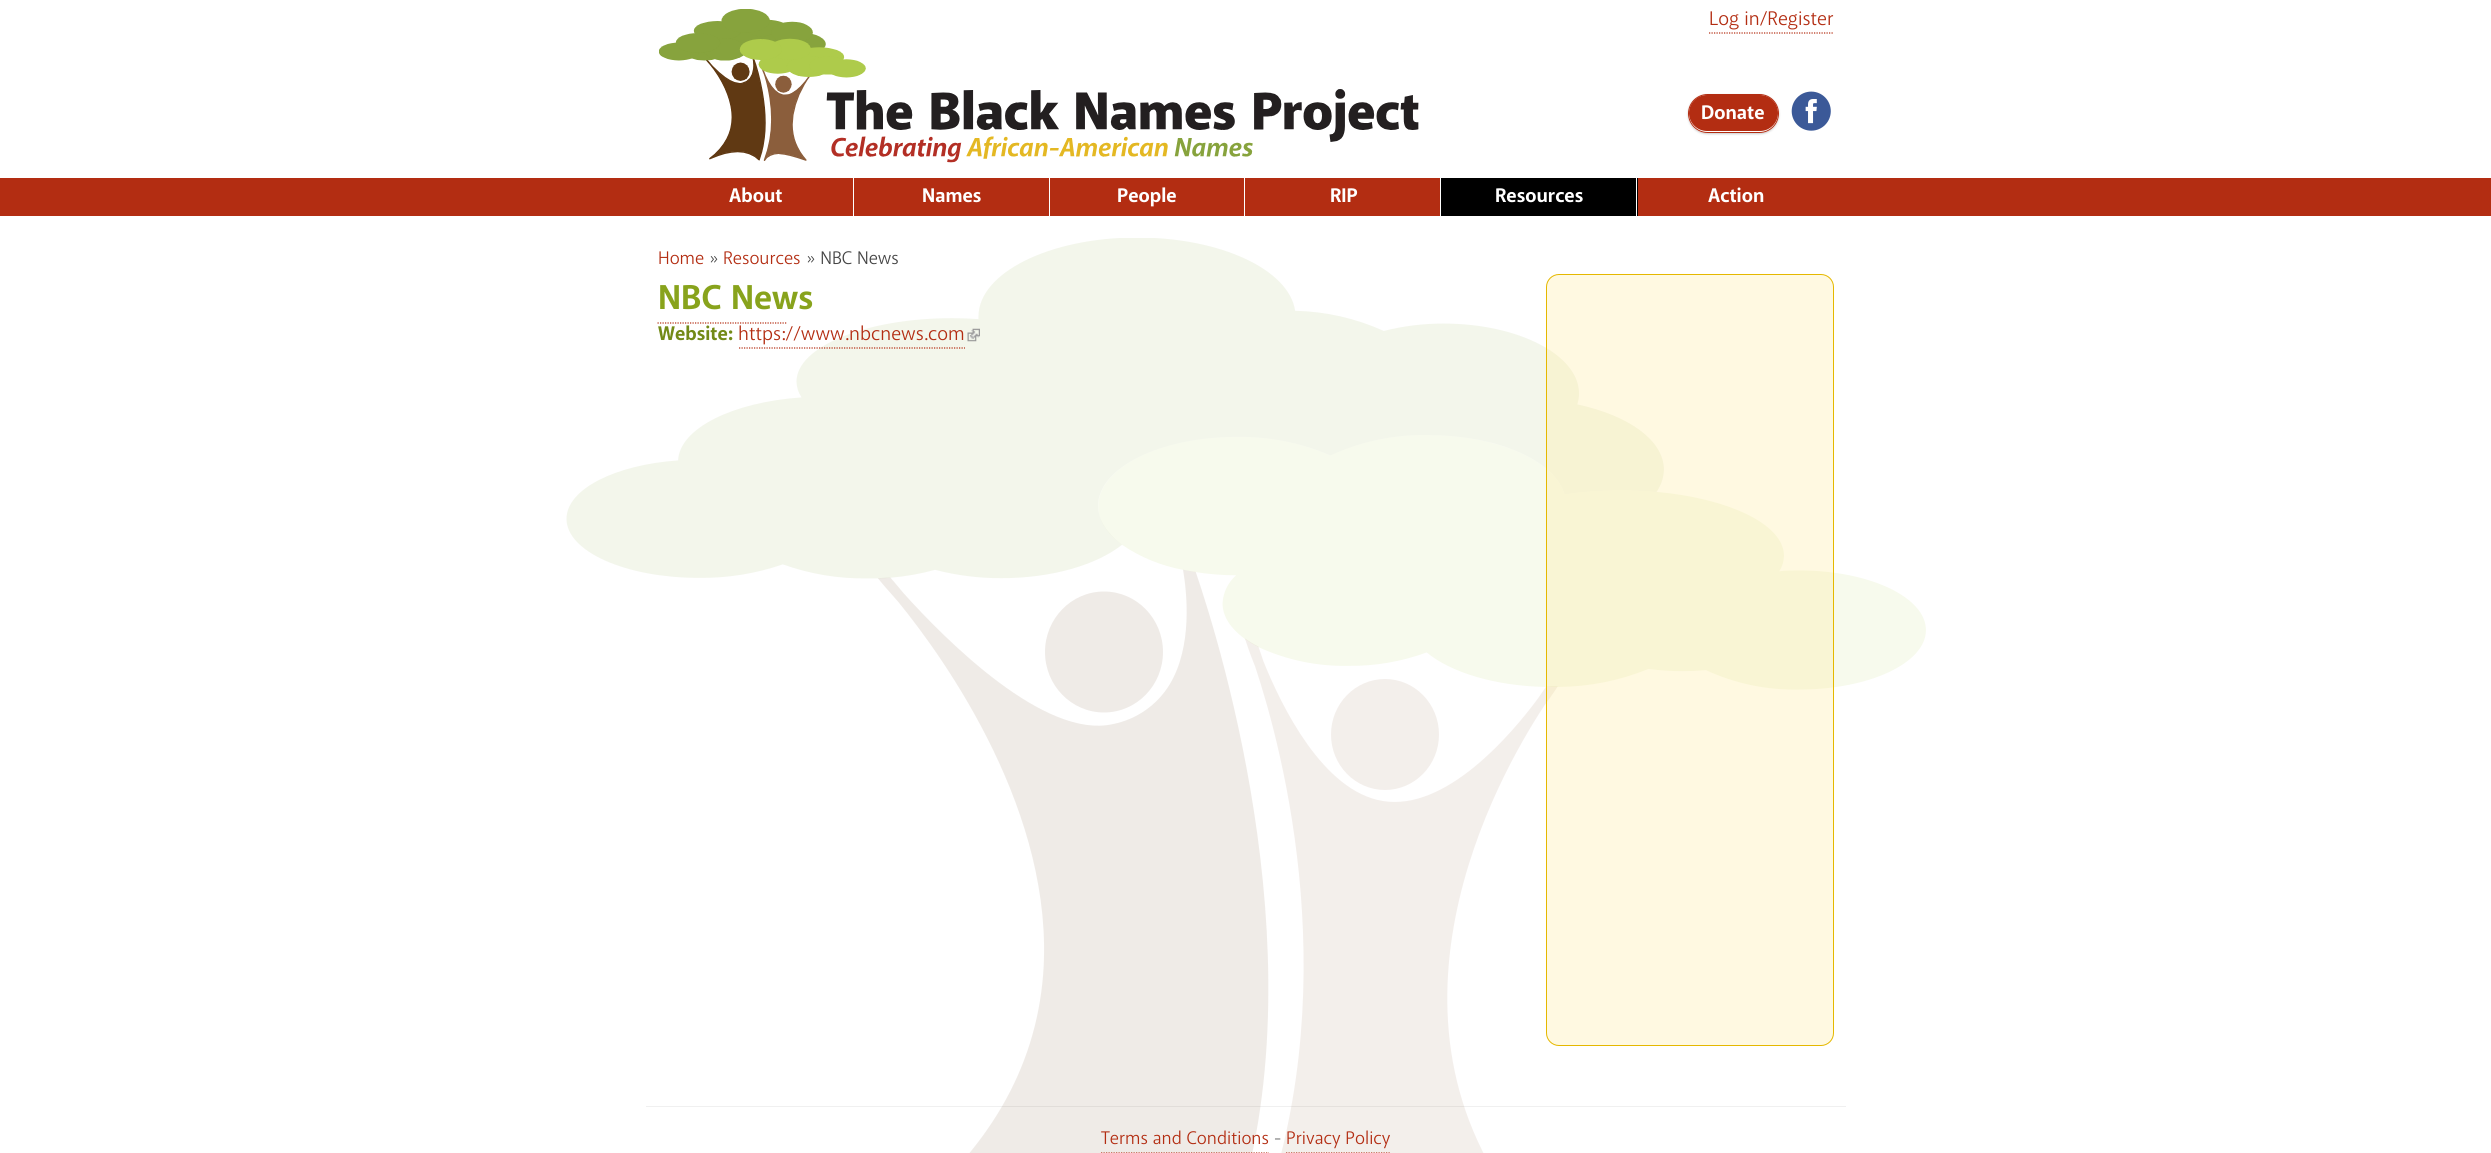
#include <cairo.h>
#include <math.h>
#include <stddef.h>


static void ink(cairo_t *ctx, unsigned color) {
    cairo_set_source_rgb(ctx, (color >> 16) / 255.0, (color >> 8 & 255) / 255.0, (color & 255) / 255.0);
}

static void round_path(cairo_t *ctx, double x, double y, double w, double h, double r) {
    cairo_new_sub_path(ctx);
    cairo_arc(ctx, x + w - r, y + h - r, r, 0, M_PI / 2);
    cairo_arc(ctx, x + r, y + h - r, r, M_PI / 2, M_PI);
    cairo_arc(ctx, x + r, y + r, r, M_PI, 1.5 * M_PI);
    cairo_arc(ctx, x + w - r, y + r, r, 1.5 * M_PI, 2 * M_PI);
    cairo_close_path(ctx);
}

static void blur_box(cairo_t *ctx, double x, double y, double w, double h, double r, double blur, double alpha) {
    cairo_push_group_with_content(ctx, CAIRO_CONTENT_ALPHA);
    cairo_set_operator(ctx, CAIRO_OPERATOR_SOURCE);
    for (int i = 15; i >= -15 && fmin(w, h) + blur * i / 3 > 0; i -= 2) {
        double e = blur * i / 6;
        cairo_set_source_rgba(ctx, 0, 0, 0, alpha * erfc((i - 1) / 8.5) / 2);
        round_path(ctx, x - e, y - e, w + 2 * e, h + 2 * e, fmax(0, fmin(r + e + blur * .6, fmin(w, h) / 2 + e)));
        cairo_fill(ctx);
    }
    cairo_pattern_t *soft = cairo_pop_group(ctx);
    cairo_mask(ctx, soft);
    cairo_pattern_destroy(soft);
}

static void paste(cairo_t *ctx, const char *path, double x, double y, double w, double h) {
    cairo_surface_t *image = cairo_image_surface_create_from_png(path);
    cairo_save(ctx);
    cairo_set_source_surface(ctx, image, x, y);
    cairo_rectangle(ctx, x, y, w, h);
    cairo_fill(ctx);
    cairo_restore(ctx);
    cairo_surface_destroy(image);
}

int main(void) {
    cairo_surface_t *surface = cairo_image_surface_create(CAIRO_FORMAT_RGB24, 2491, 1153);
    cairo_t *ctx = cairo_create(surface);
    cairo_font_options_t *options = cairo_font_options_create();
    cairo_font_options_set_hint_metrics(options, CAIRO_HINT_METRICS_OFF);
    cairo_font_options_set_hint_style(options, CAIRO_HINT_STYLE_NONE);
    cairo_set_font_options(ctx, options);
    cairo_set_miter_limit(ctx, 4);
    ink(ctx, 0xFFFFFF);
    cairo_paint(ctx);
    paste(ctx, "media/1.png", 566, 238, 1360, 915);
    paste(ctx, "media/2.png", 659, 9, 760, 154);
    cairo_select_font_face(ctx, "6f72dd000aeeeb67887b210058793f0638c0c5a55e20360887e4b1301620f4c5", CAIRO_FONT_SLANT_NORMAL, CAIRO_FONT_WEIGHT_NORMAL);
    cairo_set_font_size(ctx, 20);
    ink(ctx, 0xB32D12);
    cairo_move_to(ctx, 1709, 25);
    cairo_show_text(ctx, "Log in/Register");
    cairo_new_path(ctx);
    cairo_move_to(ctx, 1709, 33);
    cairo_line_to(ctx, 1834, 33);
    cairo_set_line_width(ctx, 1.2);
    cairo_set_dash(ctx, (double[]){1.25, 1.25}, 2, 0);
    cairo_stroke(ctx);
    cairo_save(ctx);
    cairo_set_fill_rule(ctx, CAIRO_FILL_RULE_EVEN_ODD);
    cairo_new_path(ctx);
    cairo_move_to(ctx, 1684, 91);
    cairo_line_to(ctx, 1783, 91);
    cairo_line_to(ctx, 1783, 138);
    cairo_line_to(ctx, 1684, 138);
    cairo_close_path(ctx);
    cairo_move_to(ctx, 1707.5, 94);
    cairo_line_to(ctx, 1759.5, 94);
    cairo_curve_to(ctx, 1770.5, 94, 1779, 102.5, 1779, 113.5);
    cairo_curve_to(ctx, 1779, 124.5, 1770.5, 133, 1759.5, 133);
    cairo_line_to(ctx, 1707.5, 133);
    cairo_curve_to(ctx, 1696.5, 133, 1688, 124.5, 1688, 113.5);
    cairo_curve_to(ctx, 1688, 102.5, 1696.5, 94, 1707.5, 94);
    cairo_close_path(ctx);
    cairo_clip(ctx);
    ink(ctx, 0x000000);
    blur_box(ctx, 1688, 95, 91, 39, 19.5, 1, 0.2);
    cairo_restore(ctx);
    round_path(ctx, 1689, 95, 89, 36, 18);
    cairo_fill(ctx);
    round_path(ctx, 1688.5, 94.5, 90, 38, 19);
    cairo_set_line_width(ctx, 1);
    cairo_set_dash(ctx, NULL, 0, 0);
    cairo_stroke(ctx);
    cairo_select_font_face(ctx, "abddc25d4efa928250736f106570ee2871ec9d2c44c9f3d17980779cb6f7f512 SemiBold", CAIRO_FONT_SLANT_NORMAL, CAIRO_FONT_WEIGHT_NORMAL);
    ink(ctx, 0xFFFFFF);
    cairo_move_to(ctx, 1701, 119);
    cairo_show_text(ctx, "Donate");
    paste(ctx, "media/3.png", 1791, 91, 40, 40);
    ink(ctx, 0xB32D12);
    cairo_rectangle(ctx, 0, 178, 2491, 38);
    cairo_fill(ctx);
    ink(ctx, 0xFFFFFF);
    cairo_rectangle(ctx, 853, 178, 1, 38);
    cairo_fill(ctx);
    cairo_move_to(ctx, 729, 202);
    cairo_show_text(ctx, "About");
    cairo_rectangle(ctx, 1049, 178, 1, 38);
    cairo_fill(ctx);
    cairo_move_to(ctx, 922, 202);
    cairo_show_text(ctx, "Names");
    cairo_rectangle(ctx, 1244, 178, 1, 38);
    cairo_fill(ctx);
    cairo_move_to(ctx, 1117, 202);
    cairo_show_text(ctx, "People");
    cairo_rectangle(ctx, 1440, 178, 1, 38);
    cairo_fill(ctx);
    cairo_move_to(ctx, 1330, 202);
    cairo_show_text(ctx, "RIP");
    ink(ctx, 0x000000);
    cairo_rectangle(ctx, 1441, 178, 197, 38);
    cairo_fill(ctx);
    ink(ctx, 0xFFFFFF);
    cairo_rectangle(ctx, 1636, 178, 1, 38);
    cairo_fill(ctx);
    cairo_move_to(ctx, 1495, 202);
    cairo_show_text(ctx, "Resources");
    cairo_move_to(ctx, 1708, 202);
    cairo_show_text(ctx, "Action");
    cairo_select_font_face(ctx, "6f72dd000aeeeb67887b210058793f0638c0c5a55e20360887e4b1301620f4c5", CAIRO_FONT_SLANT_NORMAL, CAIRO_FONT_WEIGHT_NORMAL);
    cairo_set_font_size(ctx, 18.5);
    ink(ctx, 0xB32D12);
    cairo_move_to(ctx, 658, 264);
    cairo_show_text(ctx, "Home");
    ink(ctx, 0x444444);
    cairo_move_to(ctx, 709, 264);
    cairo_show_text(ctx, "»");
    ink(ctx, 0xB32D12);
    cairo_move_to(ctx, 723, 264);
    cairo_show_text(ctx, "Resources");
    ink(ctx, 0x444444);
    cairo_move_to(ctx, 806, 264);
    cairo_show_text(ctx, "» NBC News");
    cairo_select_font_face(ctx, "abddc25d4efa928250736f106570ee2871ec9d2c44c9f3d17980779cb6f7f512 SemiBold", CAIRO_FONT_SLANT_NORMAL, CAIRO_FONT_WEIGHT_NORMAL);
    cairo_set_font_size(ctx, 35);
    ink(ctx, 0x88A31C);
    cairo_move_to(ctx, 658, 309);
    cairo_show_text(ctx, "NBC News");
    cairo_set_font_size(ctx, 20);
    ink(ctx, 0x738A17);
    cairo_move_to(ctx, 658, 340);
    cairo_show_text(ctx, "Website:");
    cairo_select_font_face(ctx, "6f72dd000aeeeb67887b210058793f0638c0c5a55e20360887e4b1301620f4c5", CAIRO_FONT_SLANT_NORMAL, CAIRO_FONT_WEIGHT_NORMAL);
    ink(ctx, 0xB32D12);
    cairo_move_to(ctx, 738, 340);
    cairo_show_text(ctx, "https://www.nbcnews.com");
    cairo_new_path(ctx);
    cairo_move_to(ctx, 739, 348);
    cairo_line_to(ctx, 965, 348);
    cairo_set_line_width(ctx, 1.2);
    cairo_set_dash(ctx, (double[]){1.25, 1.25}, 2, 0);
    cairo_stroke(ctx);
    cairo_new_path(ctx);
    cairo_move_to(ctx, 657.5, 323);
    cairo_line_to(ctx, 787.5, 323);
    cairo_stroke(ctx);
    paste(ctx, "media/4.png", 967, 328, 13, 14);
    cairo_set_source_rgba(ctx, 1, 0.922, 0.6, 0.3);
    round_path(ctx, 1546.5, 274.5, 287, 771, 12.5);
    cairo_fill_preserve(ctx);
    ink(ctx, 0xE5B800);
    cairo_set_line_width(ctx, 1);
    cairo_set_dash(ctx, NULL, 0, 0);
    cairo_stroke(ctx);
    cairo_set_source_rgba(ctx, 0, 0, 0, 0.06);
    cairo_rectangle(ctx, 646, 1106, 1200, 1);
    cairo_fill(ctx);
    cairo_set_font_size(ctx, 18.5);
    ink(ctx, 0xB32D12);
    cairo_move_to(ctx, 1101, 1144);
    cairo_show_text(ctx, "Terms and Conditions");
    cairo_new_path(ctx);
    cairo_move_to(ctx, 1101, 1153);
    cairo_line_to(ctx, 1269, 1153);
    cairo_set_line_width(ctx, 1.2);
    cairo_set_dash(ctx, (double[]){1.25, 1.25}, 2, 0);
    cairo_stroke(ctx);
    ink(ctx, 0x666666);
    cairo_move_to(ctx, 1274, 1144);
    cairo_show_text(ctx, "-");
    ink(ctx, 0xB32D12);
    cairo_move_to(ctx, 1286, 1144);
    cairo_show_text(ctx, "Privacy Policy");
    cairo_new_path(ctx);
    cairo_move_to(ctx, 1286, 1153);
    cairo_line_to(ctx, 1390, 1153);
    cairo_stroke(ctx);
    cairo_surface_write_to_png(surface, "image.png");
    cairo_font_options_destroy(options);
    cairo_destroy(ctx);
    cairo_surface_destroy(surface);
    return 0;
}
